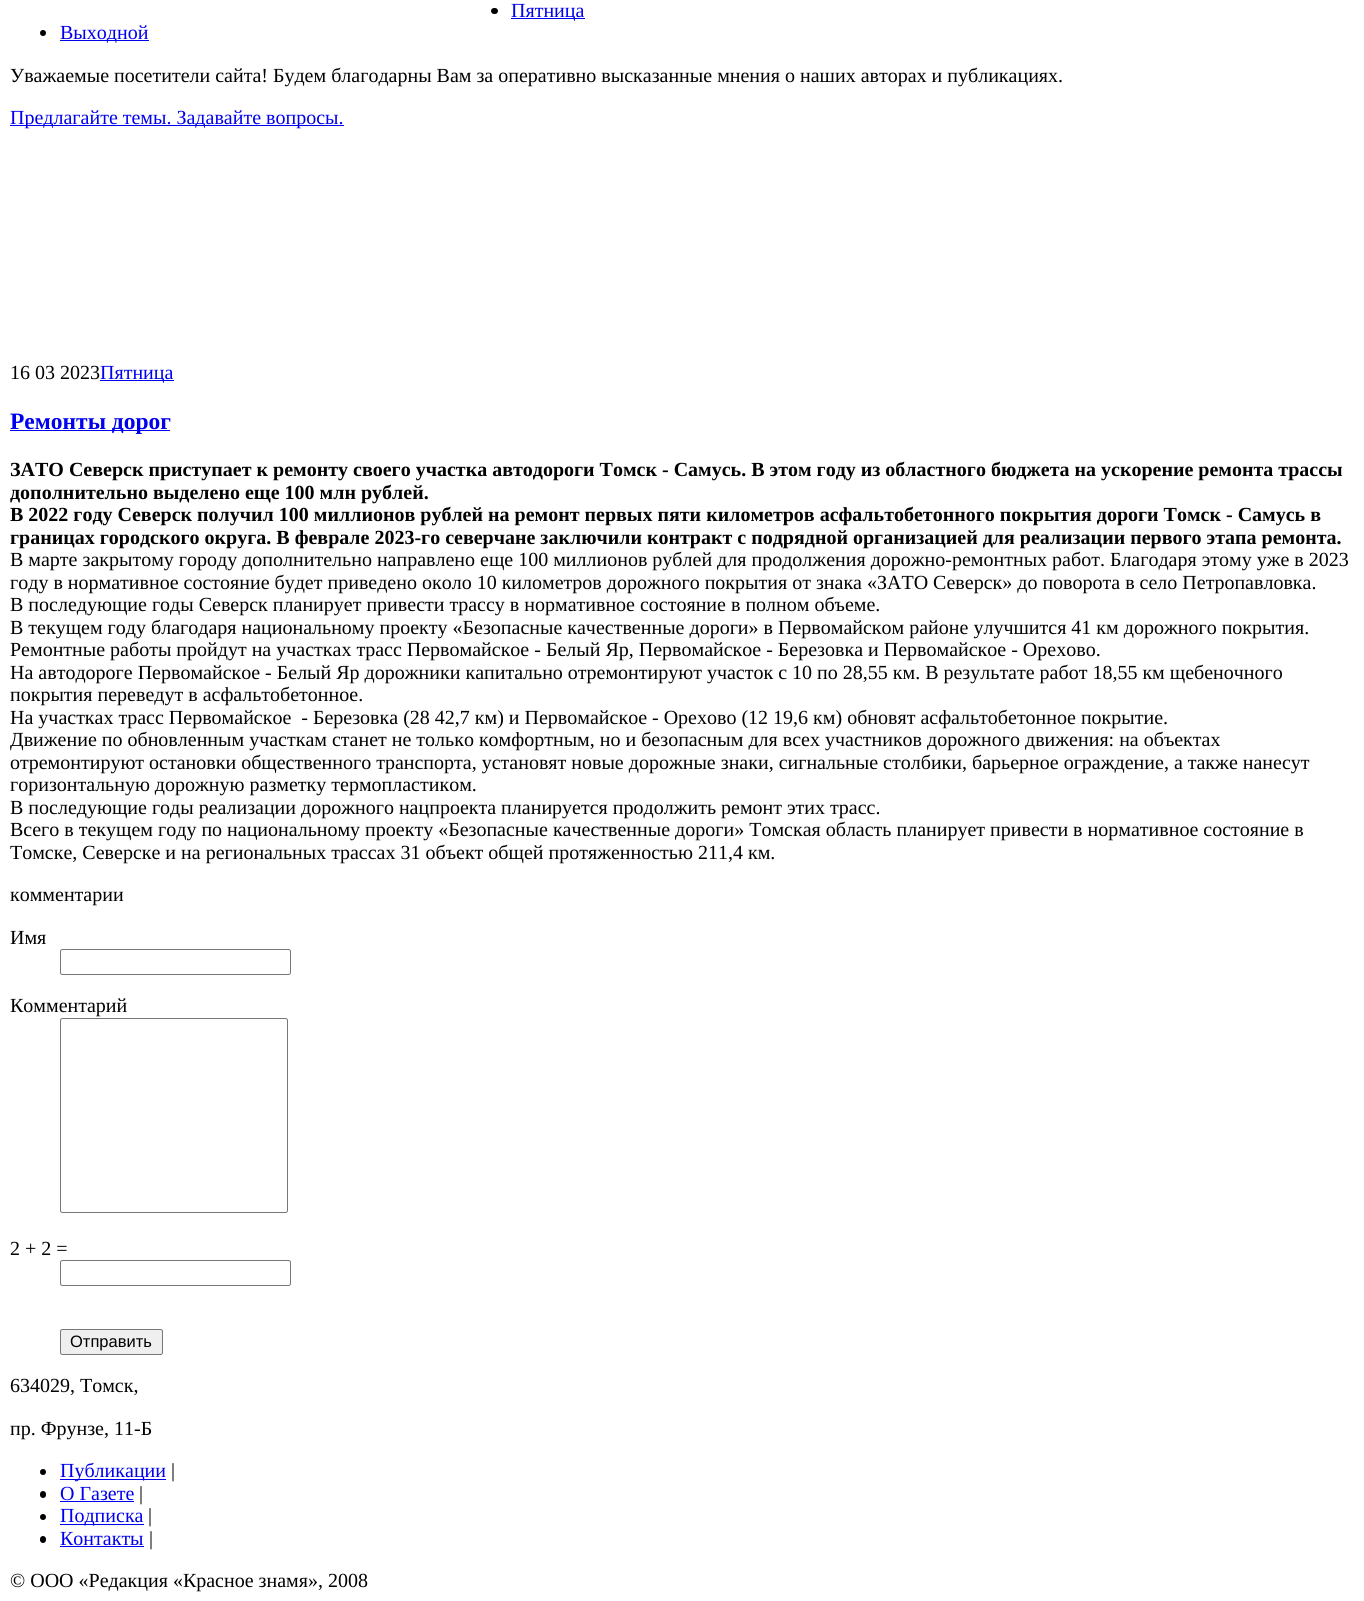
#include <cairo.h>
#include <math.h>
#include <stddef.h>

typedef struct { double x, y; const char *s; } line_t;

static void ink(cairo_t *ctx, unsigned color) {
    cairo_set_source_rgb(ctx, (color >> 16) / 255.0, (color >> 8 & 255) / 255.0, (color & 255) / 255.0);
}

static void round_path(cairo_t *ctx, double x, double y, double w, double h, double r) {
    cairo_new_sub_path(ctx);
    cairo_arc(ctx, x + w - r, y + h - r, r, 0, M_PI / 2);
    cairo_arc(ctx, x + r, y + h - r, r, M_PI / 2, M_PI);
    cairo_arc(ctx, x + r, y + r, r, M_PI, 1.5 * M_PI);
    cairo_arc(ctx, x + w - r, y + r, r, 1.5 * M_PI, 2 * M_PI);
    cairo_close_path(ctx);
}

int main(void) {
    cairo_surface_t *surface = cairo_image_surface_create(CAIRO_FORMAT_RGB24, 1364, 1601);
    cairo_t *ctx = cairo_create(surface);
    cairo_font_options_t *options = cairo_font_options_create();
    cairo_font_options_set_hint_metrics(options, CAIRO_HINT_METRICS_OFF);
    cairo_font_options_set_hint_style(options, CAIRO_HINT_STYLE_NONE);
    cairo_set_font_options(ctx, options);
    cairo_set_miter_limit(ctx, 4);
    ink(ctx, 0xFFFFFF);
    cairo_paint(ctx);
    ink(ctx, 0x000000);
    round_path(ctx, 491, 8, 7, 6, 3);
    cairo_fill(ctx);
    ink(ctx, 0x0000EE);
    cairo_rectangle(ctx, 511, 18, 74, 1);
    cairo_fill(ctx);
    cairo_select_font_face(ctx, "Liberation Serif", CAIRO_FONT_SLANT_NORMAL, CAIRO_FONT_WEIGHT_NORMAL);
    cairo_set_font_size(ctx, 20);
    cairo_move_to(ctx, 511, 17);
    cairo_show_text(ctx, "Пятница");
    ink(ctx, 0x000000);
    cairo_new_path(ctx);
    cairo_arc(ctx, 43, 33, 3, 0, 2 * M_PI);
    cairo_fill(ctx);
    ink(ctx, 0x0000EE);
    cairo_rectangle(ctx, 60, 40, 89, 1);
    cairo_fill(ctx);
    cairo_move_to(ctx, 60, 39);
    cairo_show_text(ctx, "Выходной");
    ink(ctx, 0x000000);
    cairo_move_to(ctx, 10, 82);
    cairo_show_text(ctx, "Уважаемые посетители сайта! Будем благодарны Вам за оперативно высказанные мнения о наших авторах и публикациях.");
    ink(ctx, 0x0000EE);
    cairo_rectangle(ctx, 10, 125, 334, 1);
    cairo_fill(ctx);
    cairo_move_to(ctx, 10, 124);
    cairo_show_text(ctx, "Предлагайте темы. Задавайте вопросы.");
    ink(ctx, 0x000000);
    cairo_move_to(ctx, 10, 379);
    cairo_show_text(ctx, "16 03 2023");
    ink(ctx, 0x0000EE);
    cairo_rectangle(ctx, 100, 380, 74, 1);
    cairo_fill(ctx);
    cairo_move_to(ctx, 100, 379);
    cairo_show_text(ctx, "Пятница");
    cairo_rectangle(ctx, 10, 430, 160, 1);
    cairo_fill(ctx);
    cairo_select_font_face(ctx, "Liberation Serif", CAIRO_FONT_SLANT_NORMAL, CAIRO_FONT_WEIGHT_BOLD);
    cairo_set_font_size(ctx, 23.5);
    cairo_move_to(ctx, 10, 429);
    cairo_show_text(ctx, "Ремонты дорог");
    cairo_set_font_size(ctx, 20);
    ink(ctx, 0x000000);
    {
        static const line_t items[] = {
            {10, 476, "ЗАТО Северск приступает к ремонту своего участка автодороги Томск - Самусь. В этом году из областного бюджета на ускорение ремонта трассы"},
            {10, 499, "дополнительно выделено еще 100 млн рублей."},
            {10, 521, "В 2022 году Северск получил 100 миллионов рублей на ремонт первых пяти километров асфальтобетонного покрытия дороги Томск - Самусь в"},
            {10, 544, "границах городского округа. В феврале 2023-го северчане заключили контракт с подрядной организацией для реализации первого этапа ремонта."},
        };
        for (size_t i = 0; i < sizeof items / sizeof *items; i++) {
            cairo_move_to(ctx, items[i].x, items[i].y);
            cairo_show_text(ctx, items[i].s);
        }
    }
    cairo_select_font_face(ctx, "Liberation Serif", CAIRO_FONT_SLANT_NORMAL, CAIRO_FONT_WEIGHT_NORMAL);
    {
        static const line_t items[] = {
            {10, 566, "В марте закрытому городу дополнительно направлено еще 100 миллионов рублей для продолжения дорожно-ремонтных работ. Благодаря этому уже в 2023"},
            {10, 589, "году в нормативное состояние будет приведено около 10 километров дорожного покрытия от знака «ЗАТО Северск» до поворота в село Петропавловка."},
            {10, 611, "В последующие годы Северск планирует привести трассу в нормативное состояние в полном объеме."},
            {10, 634, "В текущем году благодаря национальному проекту «Безопасные качественные дороги» в Первомайском районе улучшится 41 км дорожного покрытия."},
            {10, 656, "Ремонтные работы пройдут на участках трасс Первомайское - Белый Яр, Первомайское - Березовка и Первомайское - Орехово."},
            {10, 679, "На автодороге Первомайское - Белый Яр дорожники капитально отремонтируют участок с 10 по 28,55 км. В результате работ 18,55 км щебеночного"},
            {10, 701, "покрытия переведут в асфальтобетонное."},
            {10, 724, "На участках трасс Первомайское  - Березовка (28 42,7 км) и Первомайское - Орехово (12 19,6 км) обновят асфальтобетонное покрытие."},
            {10, 746, "Движение по обновленным участкам станет не только комфортным, но и безопасным для всех участников дорожного движения: на объектах"},
            {10, 769, "отремонтируют остановки общественного транспорта, установят новые дорожные знаки, сигнальные столбики, барьерное ограждение, а также нанесут"},
            {10, 791, "горизонтальную дорожную разметку термопластиком."},
            {10, 814, "В последующие годы реализации дорожного нацпроекта планируется продолжить ремонт этих трасс."},
            {10, 836, "Всего в текущем году по национальному проекту «Безопасные качественные дороги» Томская область планирует привести в нормативное состояние в"},
            {10, 859, "Томске, Северске и на региональных трассах 31 объект общей протяженностью 211,4 км."},
            {10, 901, "комментарии"},
            {10, 944, "Имя"},
        };
        for (size_t i = 0; i < sizeof items / sizeof *items; i++) {
            cairo_move_to(ctx, items[i].x, items[i].y);
            cairo_show_text(ctx, items[i].s);
        }
    }
    round_path(ctx, 60.5, 949.5, 230, 25, 2);
    ink(ctx, 0x767676);
    cairo_set_line_width(ctx, 1);
    cairo_stroke(ctx);
    ink(ctx, 0x000000);
    cairo_move_to(ctx, 10, 1012);
    cairo_show_text(ctx, "Комментарий");
    round_path(ctx, 60.5, 1018.5, 227, 194, 2);
    ink(ctx, 0x767676);
    cairo_stroke(ctx);
    ink(ctx, 0x000000);
    cairo_move_to(ctx, 10, 1255);
    cairo_show_text(ctx, "2 + 2 =");
    round_path(ctx, 60.5, 1260.5, 230, 25, 2);
    ink(ctx, 0x767676);
    cairo_stroke(ctx);
    ink(ctx, 0xEFEFEF);
    round_path(ctx, 60.5, 1329.5, 102, 25, 2);
    cairo_fill_preserve(ctx);
    ink(ctx, 0x767676);
    cairo_stroke(ctx);
    cairo_select_font_face(ctx, "Liberation Sans", CAIRO_FONT_SLANT_NORMAL, CAIRO_FONT_WEIGHT_NORMAL);
    cairo_set_font_size(ctx, 16.5);
    ink(ctx, 0x000000);
    cairo_move_to(ctx, 70, 1347);
    cairo_show_text(ctx, "Отправить");
    cairo_select_font_face(ctx, "Liberation Serif", CAIRO_FONT_SLANT_NORMAL, CAIRO_FONT_WEIGHT_NORMAL);
    cairo_set_font_size(ctx, 20);
    cairo_move_to(ctx, 10, 1392);
    cairo_show_text(ctx, "634029, Томск,");
    cairo_move_to(ctx, 10, 1435);
    cairo_show_text(ctx, "пр. Фрунзе, 11-Б");
    cairo_new_path(ctx);
    cairo_arc(ctx, 43, 1472, 3, 0, 2 * M_PI);
    cairo_fill(ctx);
    ink(ctx, 0x0000EE);
    cairo_rectangle(ctx, 60, 1479, 106, 1);
    cairo_fill(ctx);
    cairo_move_to(ctx, 60, 1477);
    cairo_show_text(ctx, "Публикации");
    ink(ctx, 0x000000);
    cairo_move_to(ctx, 171, 1477);
    cairo_show_text(ctx, "|");
    round_path(ctx, 40, 1491, 6, 7, 3);
    cairo_fill(ctx);
    ink(ctx, 0x0000EE);
    cairo_move_to(ctx, 60, 1500);
    cairo_show_text(ctx, "О Газете");
    cairo_rectangle(ctx, 60, 1501, 74, 1);
    cairo_fill(ctx);
    ink(ctx, 0x000000);
    cairo_move_to(ctx, 139, 1500);
    cairo_show_text(ctx, "|");
    cairo_new_path(ctx);
    cairo_arc(ctx, 43, 1517, 3, 0, 2 * M_PI);
    cairo_fill(ctx);
    ink(ctx, 0x0000EE);
    cairo_rectangle(ctx, 60, 1524, 84, 1);
    cairo_fill(ctx);
    cairo_move_to(ctx, 60, 1522);
    cairo_show_text(ctx, "Подписка");
    ink(ctx, 0x000000);
    cairo_move_to(ctx, 148, 1522);
    cairo_show_text(ctx, "|");
    round_path(ctx, 40, 1536, 6, 7, 3);
    cairo_fill(ctx);
    ink(ctx, 0x0000EE);
    cairo_move_to(ctx, 60, 1545);
    cairo_show_text(ctx, "Контакты");
    cairo_rectangle(ctx, 60, 1546, 84, 1);
    cairo_fill(ctx);
    ink(ctx, 0x000000);
    cairo_move_to(ctx, 149, 1545);
    cairo_show_text(ctx, "|");
    cairo_move_to(ctx, 10, 1587);
    cairo_show_text(ctx, "© ООО «Редакция «Красное знамя», 2008");
    cairo_surface_write_to_png(surface, "image.png");
    cairo_font_options_destroy(options);
    cairo_destroy(ctx);
    cairo_surface_destroy(surface);
    return 0;
}
